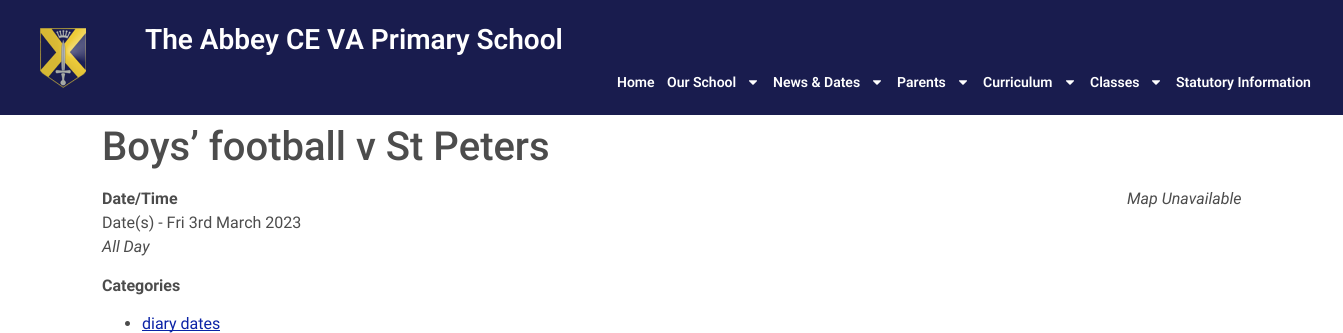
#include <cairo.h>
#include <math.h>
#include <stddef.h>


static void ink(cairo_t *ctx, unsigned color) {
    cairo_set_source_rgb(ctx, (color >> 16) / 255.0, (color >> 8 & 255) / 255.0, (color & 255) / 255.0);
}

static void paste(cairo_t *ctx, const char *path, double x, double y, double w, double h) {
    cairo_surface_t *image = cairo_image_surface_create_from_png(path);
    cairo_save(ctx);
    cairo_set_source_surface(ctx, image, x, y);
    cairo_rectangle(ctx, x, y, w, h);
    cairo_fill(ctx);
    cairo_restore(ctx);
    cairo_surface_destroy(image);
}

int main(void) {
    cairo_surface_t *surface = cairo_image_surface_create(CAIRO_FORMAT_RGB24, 1343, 333);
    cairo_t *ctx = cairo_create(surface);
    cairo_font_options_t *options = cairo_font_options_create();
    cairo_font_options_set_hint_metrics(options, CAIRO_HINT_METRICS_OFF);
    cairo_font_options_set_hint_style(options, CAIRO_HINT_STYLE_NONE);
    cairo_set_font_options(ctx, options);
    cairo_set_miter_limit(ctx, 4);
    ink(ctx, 0xFFFFFF);
    cairo_paint(ctx);
    ink(ctx, 0x191C4E);
    cairo_rectangle(ctx, 0, 0, 1343, 115);
    cairo_fill(ctx);
    paste(ctx, "media/1.png", 40, 28, 46, 60);
    cairo_select_font_face(ctx, "Roboto SemiBold", CAIRO_FONT_SLANT_NORMAL, CAIRO_FONT_WEIGHT_NORMAL);
    cairo_set_font_size(ctx, 28);
    ink(ctx, 0xFFFFFF);
    cairo_move_to(ctx, 145, 49);
    cairo_show_text(ctx, "The Abbey CE VA Primary School");
    cairo_set_font_size(ctx, 14);
    cairo_move_to(ctx, 617, 87);
    cairo_show_text(ctx, "Home");
    cairo_move_to(ctx, 667, 87);
    cairo_show_text(ctx, "Our School");
    paste(ctx, "media/2.png", 749, 80, 8, 5);
    cairo_move_to(ctx, 773, 87);
    cairo_show_text(ctx, "News & Dates");
    paste(ctx, "media/2.png", 873, 80, 8, 5);
    cairo_move_to(ctx, 897, 87);
    cairo_show_text(ctx, "Parents");
    paste(ctx, "media/2.png", 959, 80, 8, 5);
    cairo_move_to(ctx, 983, 87);
    cairo_show_text(ctx, "Curriculum");
    paste(ctx, "media/2.png", 1066, 80, 8, 5);
    cairo_move_to(ctx, 1090, 87);
    cairo_show_text(ctx, "Classes");
    paste(ctx, "media/2.png", 1152, 80, 8, 5);
    cairo_move_to(ctx, 1176, 87);
    cairo_show_text(ctx, "Statutory Information");
    cairo_select_font_face(ctx, "Roboto Medium", CAIRO_FONT_SLANT_NORMAL, CAIRO_FONT_WEIGHT_NORMAL);
    cairo_set_font_size(ctx, 40);
    ink(ctx, 0x4C4C4C);
    cairo_move_to(ctx, 102, 160);
    cairo_show_text(ctx, "Boys’ football v St Peters");
    cairo_select_font_face(ctx, "Roboto", CAIRO_FONT_SLANT_NORMAL, CAIRO_FONT_WEIGHT_BOLD);
    cairo_set_font_size(ctx, 16);
    cairo_move_to(ctx, 102, 204);
    cairo_show_text(ctx, "Date/Time");
    cairo_select_font_face(ctx, "Roboto", CAIRO_FONT_SLANT_NORMAL, CAIRO_FONT_WEIGHT_NORMAL);
    cairo_move_to(ctx, 102, 228);
    cairo_show_text(ctx, "Date(s) - Fri 3rd March 2023");
    cairo_select_font_face(ctx, "Roboto", CAIRO_FONT_SLANT_ITALIC, CAIRO_FONT_WEIGHT_NORMAL);
    cairo_move_to(ctx, 102, 252);
    cairo_show_text(ctx, "All Day");
    cairo_move_to(ctx, 1127, 204);
    cairo_show_text(ctx, "Map Unavailable");
    cairo_select_font_face(ctx, "Roboto", CAIRO_FONT_SLANT_NORMAL, CAIRO_FONT_WEIGHT_BOLD);
    cairo_move_to(ctx, 102, 291);
    cairo_show_text(ctx, "Categories");
    cairo_new_path(ctx);
    cairo_arc(ctx, 127.5, 323.5, 2.5, 0, 2 * M_PI);
    cairo_fill(ctx);
    ink(ctx, 0x0B23A6);
    cairo_rectangle(ctx, 142, 330, 78, 1);
    cairo_fill(ctx);
    cairo_select_font_face(ctx, "Roboto", CAIRO_FONT_SLANT_NORMAL, CAIRO_FONT_WEIGHT_NORMAL);
    cairo_move_to(ctx, 142, 329);
    cairo_show_text(ctx, "diary dates");
    cairo_surface_write_to_png(surface, "image.png");
    cairo_font_options_destroy(options);
    cairo_destroy(ctx);
    cairo_surface_destroy(surface);
    return 0;
}
